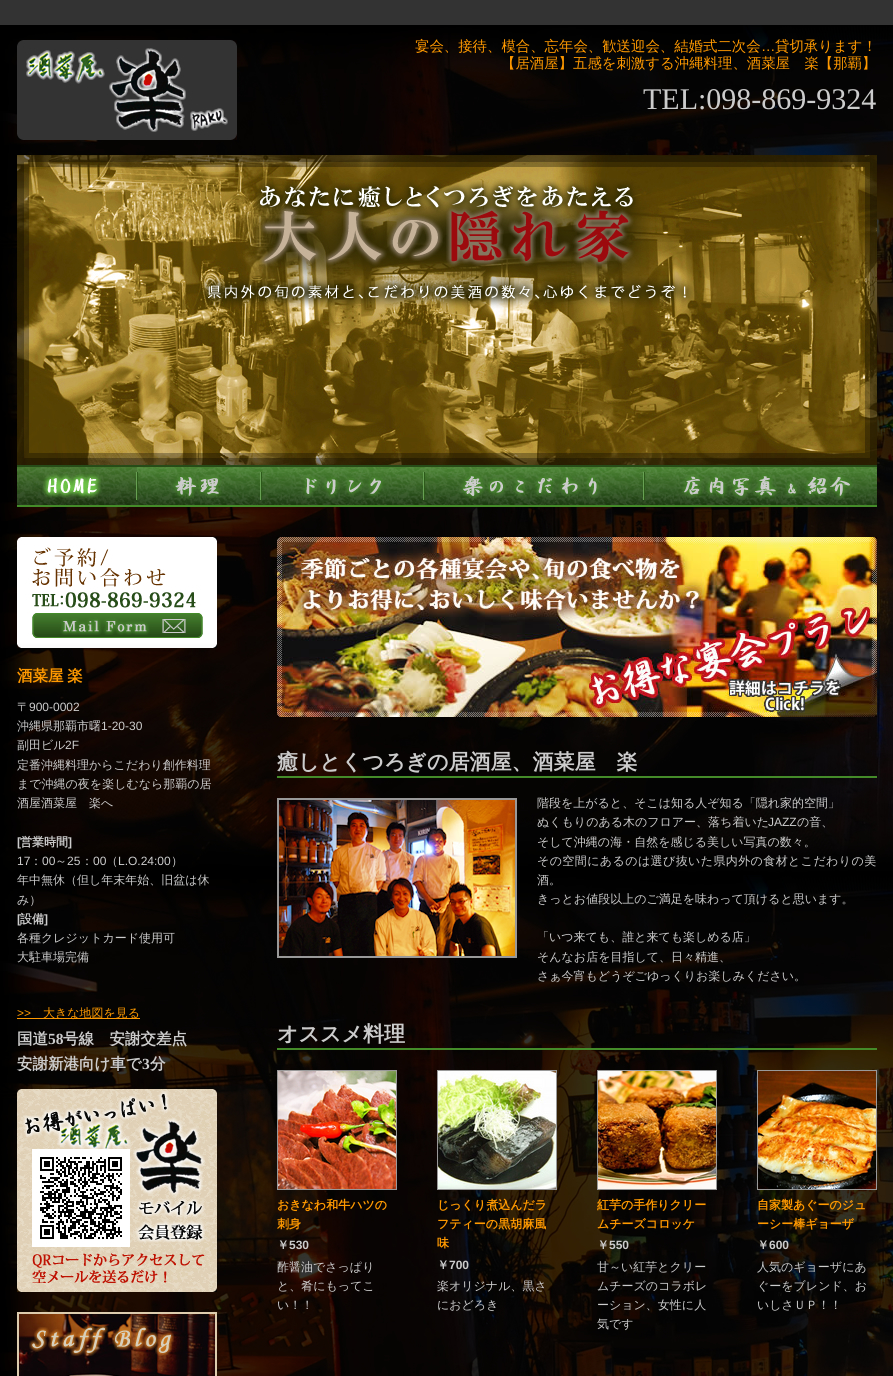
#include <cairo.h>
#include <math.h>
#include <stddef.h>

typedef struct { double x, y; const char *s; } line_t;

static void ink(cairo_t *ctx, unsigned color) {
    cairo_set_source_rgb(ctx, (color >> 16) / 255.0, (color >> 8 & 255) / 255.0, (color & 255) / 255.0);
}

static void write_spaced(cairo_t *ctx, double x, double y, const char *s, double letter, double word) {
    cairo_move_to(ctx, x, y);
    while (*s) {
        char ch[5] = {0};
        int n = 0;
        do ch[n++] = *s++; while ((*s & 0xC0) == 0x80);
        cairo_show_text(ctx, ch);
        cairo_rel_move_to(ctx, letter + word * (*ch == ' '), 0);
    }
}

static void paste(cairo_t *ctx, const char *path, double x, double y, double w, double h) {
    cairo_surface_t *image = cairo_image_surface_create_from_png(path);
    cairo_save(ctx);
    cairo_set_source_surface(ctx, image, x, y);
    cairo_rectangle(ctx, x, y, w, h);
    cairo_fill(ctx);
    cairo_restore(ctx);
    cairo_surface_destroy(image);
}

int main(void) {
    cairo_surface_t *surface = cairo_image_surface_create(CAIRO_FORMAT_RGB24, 893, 1376);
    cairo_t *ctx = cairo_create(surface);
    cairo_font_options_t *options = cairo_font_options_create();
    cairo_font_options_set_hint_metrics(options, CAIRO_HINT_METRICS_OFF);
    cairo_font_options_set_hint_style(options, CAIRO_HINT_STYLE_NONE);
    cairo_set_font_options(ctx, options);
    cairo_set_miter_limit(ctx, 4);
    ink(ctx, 0x333333);
    cairo_paint(ctx);
    paste(ctx, "media/1.png", 0, 25, 893, 1351);
    paste(ctx, "media/2.png", 17, 40, 220, 100);
    cairo_select_font_face(ctx, "WenQuanYi Zen Hei Medium", CAIRO_FONT_SLANT_NORMAL, CAIRO_FONT_WEIGHT_NORMAL);
    cairo_set_font_size(ctx, 14.4);
    ink(ctx, 0xFF9900);
    cairo_move_to(ctx, 415, 51);
    cairo_show_text(ctx, "宴会、接待、模合、忘年会、歓送迎会、結婚式二次会");
    cairo_select_font_face(ctx, "Liberation Sans", CAIRO_FONT_SLANT_NORMAL, CAIRO_FONT_WEIGHT_NORMAL);
    cairo_move_to(ctx, 761, 51);
    cairo_show_text(ctx, "…");
    cairo_select_font_face(ctx, "WenQuanYi Zen Hei Medium", CAIRO_FONT_SLANT_NORMAL, CAIRO_FONT_WEIGHT_NORMAL);
    cairo_move_to(ctx, 775, 51);
    cairo_show_text(ctx, "貸切承ります！");
    cairo_move_to(ctx, 501, 68);
    cairo_show_text(ctx, "【居酒屋】五感を刺激する沖縄料理、酒菜屋　楽【那覇】");
    cairo_select_font_face(ctx, "Liberation Serif", CAIRO_FONT_SLANT_NORMAL, CAIRO_FONT_WEIGHT_NORMAL);
    cairo_set_font_size(ctx, 30);
    ink(ctx, 0xCCCCCC);
    cairo_move_to(ctx, 643, 109);
    cairo_show_text(ctx, "TEL:098-869-9324");
    paste(ctx, "media/3.png", 17, 155, 860, 310);
    paste(ctx, "media/4.png", 17, 465, 120, 42);
    paste(ctx, "media/5.png", 137, 465, 124, 42);
    paste(ctx, "media/6.png", 261, 465, 163, 42);
    paste(ctx, "media/7.png", 424, 465, 220, 42);
    paste(ctx, "media/8.png", 644, 465, 233, 42);
    paste(ctx, "media/9.png", 17, 537, 200, 111);
    cairo_select_font_face(ctx, "WenQuanYi Zen Hei", CAIRO_FONT_SLANT_NORMAL, CAIRO_FONT_WEIGHT_BOLD);
    cairo_set_font_size(ctx, 15.5);
    ink(ctx, 0xFF9900);
    write_spaced(ctx, 17, 681, "酒菜屋 楽", 0, -1);
    cairo_select_font_face(ctx, "WenQuanYi Zen Hei Medium", CAIRO_FONT_SLANT_NORMAL, CAIRO_FONT_WEIGHT_NORMAL);
    cairo_set_font_size(ctx, 12);
    ink(ctx, 0xCCCCCC);
    cairo_move_to(ctx, 17, 711);
    cairo_show_text(ctx, "〒");
    cairo_select_font_face(ctx, "Liberation Sans", CAIRO_FONT_SLANT_NORMAL, CAIRO_FONT_WEIGHT_NORMAL);
    cairo_move_to(ctx, 29, 711);
    cairo_show_text(ctx, "900-0002");
    cairo_select_font_face(ctx, "WenQuanYi Zen Hei Medium", CAIRO_FONT_SLANT_NORMAL, CAIRO_FONT_WEIGHT_NORMAL);
    cairo_move_to(ctx, 17, 730);
    cairo_show_text(ctx, "沖縄県那覇市曙");
    cairo_select_font_face(ctx, "Liberation Sans", CAIRO_FONT_SLANT_NORMAL, CAIRO_FONT_WEIGHT_NORMAL);
    cairo_move_to(ctx, 101, 730);
    cairo_show_text(ctx, "1-20-30");
    cairo_select_font_face(ctx, "WenQuanYi Zen Hei Medium", CAIRO_FONT_SLANT_NORMAL, CAIRO_FONT_WEIGHT_NORMAL);
    cairo_move_to(ctx, 17, 749);
    cairo_show_text(ctx, "副田ビル");
    cairo_select_font_face(ctx, "Liberation Sans", CAIRO_FONT_SLANT_NORMAL, CAIRO_FONT_WEIGHT_NORMAL);
    cairo_move_to(ctx, 65, 749);
    cairo_show_text(ctx, "2F");
    cairo_select_font_face(ctx, "WenQuanYi Zen Hei Medium", CAIRO_FONT_SLANT_NORMAL, CAIRO_FONT_WEIGHT_NORMAL);
    {
        static const line_t items[] = {
            {17, 769, "定番沖縄料理からこだわり創作料理"},
            {17, 788, "まで沖縄の夜を楽しむなら那覇の居"},
            {17, 807, "酒屋酒菜屋　楽へ"},
        };
        for (size_t i = 0; i < sizeof items / sizeof *items; i++) {
            cairo_move_to(ctx, items[i].x, items[i].y);
            cairo_show_text(ctx, items[i].s);
        }
    }
    cairo_select_font_face(ctx, "Liberation Sans", CAIRO_FONT_SLANT_NORMAL, CAIRO_FONT_WEIGHT_BOLD);
    cairo_move_to(ctx, 17, 846);
    cairo_show_text(ctx, "[");
    cairo_select_font_face(ctx, "WenQuanYi Zen Hei", CAIRO_FONT_SLANT_NORMAL, CAIRO_FONT_WEIGHT_BOLD);
    cairo_move_to(ctx, 20, 846);
    cairo_show_text(ctx, "営業時間");
    cairo_select_font_face(ctx, "Liberation Sans", CAIRO_FONT_SLANT_NORMAL, CAIRO_FONT_WEIGHT_BOLD);
    cairo_move_to(ctx, 68, 846);
    cairo_show_text(ctx, "]");
    cairo_select_font_face(ctx, "Liberation Sans", CAIRO_FONT_SLANT_NORMAL, CAIRO_FONT_WEIGHT_NORMAL);
    cairo_move_to(ctx, 17, 865);
    cairo_show_text(ctx, "17");
    cairo_select_font_face(ctx, "WenQuanYi Zen Hei Medium", CAIRO_FONT_SLANT_NORMAL, CAIRO_FONT_WEIGHT_NORMAL);
    cairo_move_to(ctx, 30, 865);
    cairo_show_text(ctx, "：");
    cairo_select_font_face(ctx, "Liberation Sans", CAIRO_FONT_SLANT_NORMAL, CAIRO_FONT_WEIGHT_NORMAL);
    cairo_move_to(ctx, 42, 865);
    cairo_show_text(ctx, "00");
    cairo_select_font_face(ctx, "WenQuanYi Zen Hei Medium", CAIRO_FONT_SLANT_NORMAL, CAIRO_FONT_WEIGHT_NORMAL);
    cairo_move_to(ctx, 55, 865);
    cairo_show_text(ctx, "～");
    cairo_select_font_face(ctx, "Liberation Sans", CAIRO_FONT_SLANT_NORMAL, CAIRO_FONT_WEIGHT_NORMAL);
    cairo_move_to(ctx, 67, 865);
    cairo_show_text(ctx, "25");
    cairo_select_font_face(ctx, "WenQuanYi Zen Hei Medium", CAIRO_FONT_SLANT_NORMAL, CAIRO_FONT_WEIGHT_NORMAL);
    cairo_move_to(ctx, 81, 865);
    cairo_show_text(ctx, "：");
    cairo_select_font_face(ctx, "Liberation Sans", CAIRO_FONT_SLANT_NORMAL, CAIRO_FONT_WEIGHT_NORMAL);
    cairo_move_to(ctx, 93, 865);
    cairo_show_text(ctx, "00");
    cairo_select_font_face(ctx, "WenQuanYi Zen Hei Medium", CAIRO_FONT_SLANT_NORMAL, CAIRO_FONT_WEIGHT_NORMAL);
    cairo_move_to(ctx, 106, 865);
    cairo_show_text(ctx, "（");
    cairo_select_font_face(ctx, "Liberation Sans", CAIRO_FONT_SLANT_NORMAL, CAIRO_FONT_WEIGHT_NORMAL);
    cairo_move_to(ctx, 118, 865);
    cairo_show_text(ctx, "L.O.24:00");
    cairo_select_font_face(ctx, "WenQuanYi Zen Hei Medium", CAIRO_FONT_SLANT_NORMAL, CAIRO_FONT_WEIGHT_NORMAL);
    {
        static const line_t items[] = {
            {171, 865, "）"},
            {17, 884, "年中無休（但し年末年始、旧盆は休"},
            {17, 904, "み）"},
        };
        for (size_t i = 0; i < sizeof items / sizeof *items; i++) {
            cairo_move_to(ctx, items[i].x, items[i].y);
            cairo_show_text(ctx, items[i].s);
        }
    }
    cairo_select_font_face(ctx, "Liberation Sans", CAIRO_FONT_SLANT_NORMAL, CAIRO_FONT_WEIGHT_BOLD);
    cairo_move_to(ctx, 17, 923);
    cairo_show_text(ctx, "[");
    cairo_select_font_face(ctx, "WenQuanYi Zen Hei", CAIRO_FONT_SLANT_NORMAL, CAIRO_FONT_WEIGHT_BOLD);
    cairo_move_to(ctx, 20, 923);
    cairo_show_text(ctx, "設備");
    cairo_select_font_face(ctx, "Liberation Sans", CAIRO_FONT_SLANT_NORMAL, CAIRO_FONT_WEIGHT_BOLD);
    cairo_move_to(ctx, 44, 923);
    cairo_show_text(ctx, "]");
    cairo_select_font_face(ctx, "WenQuanYi Zen Hei Medium", CAIRO_FONT_SLANT_NORMAL, CAIRO_FONT_WEIGHT_NORMAL);
    cairo_move_to(ctx, 17, 942);
    cairo_show_text(ctx, "各種クレジットカード使用可");
    cairo_move_to(ctx, 17, 961);
    cairo_show_text(ctx, "大駐車場完備");
    cairo_select_font_face(ctx, "Liberation Sans", CAIRO_FONT_SLANT_NORMAL, CAIRO_FONT_WEIGHT_NORMAL);
    ink(ctx, 0xFF9900);
    cairo_move_to(ctx, 17, 1017);
    cairo_show_text(ctx, ">>");
    cairo_rectangle(ctx, 17, 1018, 123, 1);
    cairo_fill(ctx);
    cairo_select_font_face(ctx, "WenQuanYi Zen Hei Medium", CAIRO_FONT_SLANT_NORMAL, CAIRO_FONT_WEIGHT_NORMAL);
    cairo_move_to(ctx, 43, 1017);
    cairo_show_text(ctx, "大きな地図を見る");
    cairo_select_font_face(ctx, "WenQuanYi Zen Hei", CAIRO_FONT_SLANT_NORMAL, CAIRO_FONT_WEIGHT_BOLD);
    cairo_set_font_size(ctx, 15.5);
    ink(ctx, 0xCCCCCC);
    cairo_move_to(ctx, 17, 1044);
    cairo_show_text(ctx, "国道");
    cairo_select_font_face(ctx, "Liberation Serif", CAIRO_FONT_SLANT_NORMAL, CAIRO_FONT_WEIGHT_BOLD);
    cairo_move_to(ctx, 48, 1044);
    cairo_show_text(ctx, "58");
    cairo_select_font_face(ctx, "WenQuanYi Zen Hei", CAIRO_FONT_SLANT_NORMAL, CAIRO_FONT_WEIGHT_BOLD);
    cairo_move_to(ctx, 63, 1044);
    cairo_show_text(ctx, "号線　安謝交差点");
    cairo_move_to(ctx, 17, 1069);
    cairo_show_text(ctx, "安謝新港向け車で");
    cairo_select_font_face(ctx, "Liberation Serif", CAIRO_FONT_SLANT_NORMAL, CAIRO_FONT_WEIGHT_BOLD);
    cairo_move_to(ctx, 142, 1069);
    cairo_show_text(ctx, "3");
    cairo_select_font_face(ctx, "WenQuanYi Zen Hei", CAIRO_FONT_SLANT_NORMAL, CAIRO_FONT_WEIGHT_BOLD);
    cairo_move_to(ctx, 150, 1069);
    cairo_show_text(ctx, "分");
    paste(ctx, "media/10.png", 17, 1089, 200, 203);
    paste(ctx, "media/11.png", 17, 1312, 200, 64);
    paste(ctx, "media/12.png", 277, 537, 600, 180);
    ink(ctx, 0x448B29);
    cairo_rectangle(ctx, 277, 776, 600, 2);
    cairo_fill(ctx);
    cairo_set_font_size(ctx, 21);
    ink(ctx, 0xCCCCCC);
    cairo_move_to(ctx, 277, 769);
    cairo_show_text(ctx, "癒しとくつろぎの居酒屋、酒菜屋　楽");
    cairo_rectangle(ctx, 278, 799, 238, 158);
    ink(ctx, 0x999999);
    cairo_stroke(ctx);
    paste(ctx, "media/13.png", 279, 800, 236, 156);
    cairo_select_font_face(ctx, "WenQuanYi Zen Hei Medium", CAIRO_FONT_SLANT_NORMAL, CAIRO_FONT_WEIGHT_NORMAL);
    cairo_set_font_size(ctx, 12);
    ink(ctx, 0xCCCCCC);
    cairo_move_to(ctx, 537, 807);
    cairo_show_text(ctx, "階段を上がると、そこは知る人ぞ知る「隠れ家的空間」");
    cairo_move_to(ctx, 537, 826);
    cairo_show_text(ctx, "ぬくもりのある木のフロアー、落ち着いた");
    cairo_select_font_face(ctx, "Liberation Sans", CAIRO_FONT_SLANT_NORMAL, CAIRO_FONT_WEIGHT_NORMAL);
    cairo_move_to(ctx, 768, 826);
    cairo_show_text(ctx, "JAZZ");
    cairo_select_font_face(ctx, "WenQuanYi Zen Hei Medium", CAIRO_FONT_SLANT_NORMAL, CAIRO_FONT_WEIGHT_NORMAL);
    cairo_move_to(ctx, 797, 826);
    cairo_show_text(ctx, "の音、");
    cairo_move_to(ctx, 537, 846);
    cairo_show_text(ctx, "そして沖縄の海・自然を感じる美しい写真の数々。");
    write_spaced(ctx, 537, 865, "その空間にあるのは選び抜いた県内外の食材とこだわりの美", 0.4, 0);
    {
        static const line_t items[] = {
            {537, 884, "酒。"},
            {537, 903, "きっとお値段以上のご満足を味わって頂けると思います。"},
            {537, 941, "「いつ来ても、誰と来ても楽しめる店」"},
            {537, 961, "そんなお店を目指して、日々精進、"},
            {537, 980, "さぁ今宵もどうぞごゆっくりお楽しみください。"},
        };
        for (size_t i = 0; i < sizeof items / sizeof *items; i++) {
            cairo_move_to(ctx, items[i].x, items[i].y);
            cairo_show_text(ctx, items[i].s);
        }
    }
    ink(ctx, 0x448B29);
    cairo_rectangle(ctx, 277, 1048, 600, 2);
    cairo_fill(ctx);
    cairo_select_font_face(ctx, "WenQuanYi Zen Hei", CAIRO_FONT_SLANT_NORMAL, CAIRO_FONT_WEIGHT_BOLD);
    cairo_set_font_size(ctx, 21);
    ink(ctx, 0xCCCCCC);
    cairo_move_to(ctx, 277, 1041);
    cairo_show_text(ctx, "オススメ料理");
    cairo_rectangle(ctx, 277.5, 1070.5, 119, 119);
    ink(ctx, 0x999999);
    cairo_set_line_width(ctx, 1);
    cairo_stroke(ctx);
    paste(ctx, "media/14.png", 278, 1071, 118, 118);
    cairo_set_font_size(ctx, 12);
    ink(ctx, 0xFF9900);
    cairo_move_to(ctx, 277, 1209);
    cairo_show_text(ctx, "おきなわ和牛ハツの");
    cairo_move_to(ctx, 277, 1228);
    cairo_show_text(ctx, "刺身");
    ink(ctx, 0xCCCCCC);
    cairo_move_to(ctx, 277, 1249);
    cairo_show_text(ctx, "￥");
    cairo_select_font_face(ctx, "Liberation Sans", CAIRO_FONT_SLANT_NORMAL, CAIRO_FONT_WEIGHT_BOLD);
    cairo_move_to(ctx, 289, 1249);
    cairo_show_text(ctx, "530");
    cairo_select_font_face(ctx, "WenQuanYi Zen Hei Medium", CAIRO_FONT_SLANT_NORMAL, CAIRO_FONT_WEIGHT_NORMAL);
    {
        static const line_t items[] = {
            {277, 1271, "酢醤油でさっぱり"},
            {277, 1290, "と、肴にもってこ"},
            {277, 1309, "い！！"},
        };
        for (size_t i = 0; i < sizeof items / sizeof *items; i++) {
            cairo_move_to(ctx, items[i].x, items[i].y);
            cairo_show_text(ctx, items[i].s);
        }
    }
    cairo_rectangle(ctx, 437.5, 1070.5, 119, 119);
    ink(ctx, 0x999999);
    cairo_stroke(ctx);
    paste(ctx, "media/15.png", 438, 1071, 118, 118);
    cairo_select_font_face(ctx, "WenQuanYi Zen Hei", CAIRO_FONT_SLANT_NORMAL, CAIRO_FONT_WEIGHT_BOLD);
    ink(ctx, 0xFF9900);
    {
        static const line_t items[] = {
            {437, 1209, "じっくり煮込んだラ"},
            {437, 1228, "フティーの黒胡麻風"},
            {437, 1247, "味"},
        };
        for (size_t i = 0; i < sizeof items / sizeof *items; i++) {
            cairo_move_to(ctx, items[i].x, items[i].y);
            cairo_show_text(ctx, items[i].s);
        }
    }
    ink(ctx, 0xCCCCCC);
    cairo_move_to(ctx, 437, 1269);
    cairo_show_text(ctx, "￥");
    cairo_select_font_face(ctx, "Liberation Sans", CAIRO_FONT_SLANT_NORMAL, CAIRO_FONT_WEIGHT_BOLD);
    cairo_move_to(ctx, 449, 1269);
    cairo_show_text(ctx, "700");
    cairo_select_font_face(ctx, "WenQuanYi Zen Hei Medium", CAIRO_FONT_SLANT_NORMAL, CAIRO_FONT_WEIGHT_NORMAL);
    cairo_move_to(ctx, 437, 1290);
    cairo_show_text(ctx, "楽オリジナル、黒さ");
    cairo_move_to(ctx, 437, 1309);
    cairo_show_text(ctx, "におどろき");
    cairo_rectangle(ctx, 597.5, 1070.5, 119, 119);
    ink(ctx, 0x999999);
    cairo_stroke(ctx);
    paste(ctx, "media/16.png", 598, 1071, 118, 118);
    cairo_select_font_face(ctx, "WenQuanYi Zen Hei", CAIRO_FONT_SLANT_NORMAL, CAIRO_FONT_WEIGHT_BOLD);
    ink(ctx, 0xFF9900);
    cairo_move_to(ctx, 597, 1209);
    cairo_show_text(ctx, "紅芋の手作りクリー");
    cairo_move_to(ctx, 597, 1228);
    cairo_show_text(ctx, "ムチーズコロッケ");
    ink(ctx, 0xCCCCCC);
    cairo_move_to(ctx, 597, 1249);
    cairo_show_text(ctx, "￥");
    cairo_select_font_face(ctx, "Liberation Sans", CAIRO_FONT_SLANT_NORMAL, CAIRO_FONT_WEIGHT_BOLD);
    cairo_move_to(ctx, 609, 1249);
    cairo_show_text(ctx, "550");
    cairo_select_font_face(ctx, "WenQuanYi Zen Hei Medium", CAIRO_FONT_SLANT_NORMAL, CAIRO_FONT_WEIGHT_NORMAL);
    {
        static const line_t items[] = {
            {597, 1271, "甘～い紅芋とクリー"},
            {597, 1290, "ムチーズのコラボレ"},
            {597, 1309, "ーション、女性に人"},
            {597, 1328, "気です"},
        };
        for (size_t i = 0; i < sizeof items / sizeof *items; i++) {
            cairo_move_to(ctx, items[i].x, items[i].y);
            cairo_show_text(ctx, items[i].s);
        }
    }
    cairo_rectangle(ctx, 757.5, 1070.5, 119, 119);
    ink(ctx, 0x999999);
    cairo_stroke(ctx);
    paste(ctx, "media/17.png", 758, 1071, 118, 118);
    cairo_select_font_face(ctx, "WenQuanYi Zen Hei", CAIRO_FONT_SLANT_NORMAL, CAIRO_FONT_WEIGHT_BOLD);
    ink(ctx, 0xFF9900);
    cairo_move_to(ctx, 757, 1209);
    cairo_show_text(ctx, "自家製あぐーのジュ");
    cairo_move_to(ctx, 757, 1228);
    cairo_show_text(ctx, "ーシー棒ギョーザ");
    ink(ctx, 0xCCCCCC);
    cairo_move_to(ctx, 757, 1249);
    cairo_show_text(ctx, "￥");
    cairo_select_font_face(ctx, "Liberation Sans", CAIRO_FONT_SLANT_NORMAL, CAIRO_FONT_WEIGHT_BOLD);
    cairo_move_to(ctx, 769, 1249);
    cairo_show_text(ctx, "600");
    cairo_select_font_face(ctx, "WenQuanYi Zen Hei Medium", CAIRO_FONT_SLANT_NORMAL, CAIRO_FONT_WEIGHT_NORMAL);
    {
        static const line_t items[] = {
            {757, 1271, "人気のギョーザにあ"},
            {757, 1290, "ぐーをブレンド、お"},
            {757, 1309, "いしさＵＰ！！"},
        };
        for (size_t i = 0; i < sizeof items / sizeof *items; i++) {
            cairo_move_to(ctx, items[i].x, items[i].y);
            cairo_show_text(ctx, items[i].s);
        }
    }
    cairo_surface_write_to_png(surface, "image.png");
    cairo_font_options_destroy(options);
    cairo_destroy(ctx);
    cairo_surface_destroy(surface);
    return 0;
}
